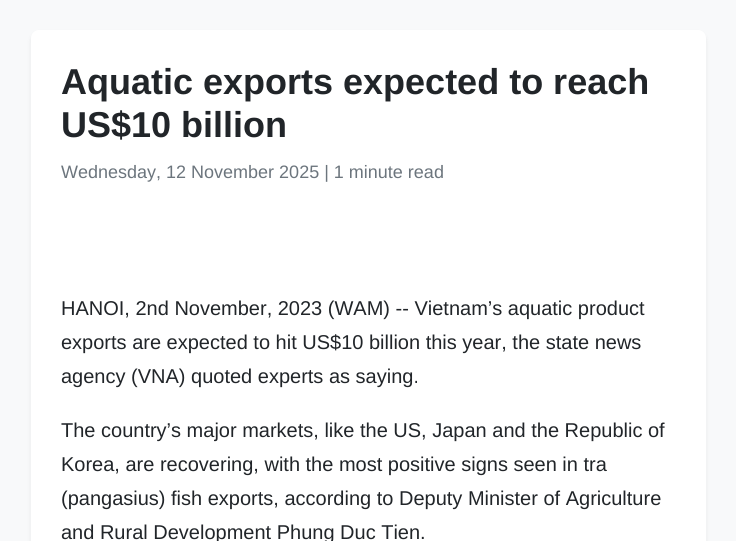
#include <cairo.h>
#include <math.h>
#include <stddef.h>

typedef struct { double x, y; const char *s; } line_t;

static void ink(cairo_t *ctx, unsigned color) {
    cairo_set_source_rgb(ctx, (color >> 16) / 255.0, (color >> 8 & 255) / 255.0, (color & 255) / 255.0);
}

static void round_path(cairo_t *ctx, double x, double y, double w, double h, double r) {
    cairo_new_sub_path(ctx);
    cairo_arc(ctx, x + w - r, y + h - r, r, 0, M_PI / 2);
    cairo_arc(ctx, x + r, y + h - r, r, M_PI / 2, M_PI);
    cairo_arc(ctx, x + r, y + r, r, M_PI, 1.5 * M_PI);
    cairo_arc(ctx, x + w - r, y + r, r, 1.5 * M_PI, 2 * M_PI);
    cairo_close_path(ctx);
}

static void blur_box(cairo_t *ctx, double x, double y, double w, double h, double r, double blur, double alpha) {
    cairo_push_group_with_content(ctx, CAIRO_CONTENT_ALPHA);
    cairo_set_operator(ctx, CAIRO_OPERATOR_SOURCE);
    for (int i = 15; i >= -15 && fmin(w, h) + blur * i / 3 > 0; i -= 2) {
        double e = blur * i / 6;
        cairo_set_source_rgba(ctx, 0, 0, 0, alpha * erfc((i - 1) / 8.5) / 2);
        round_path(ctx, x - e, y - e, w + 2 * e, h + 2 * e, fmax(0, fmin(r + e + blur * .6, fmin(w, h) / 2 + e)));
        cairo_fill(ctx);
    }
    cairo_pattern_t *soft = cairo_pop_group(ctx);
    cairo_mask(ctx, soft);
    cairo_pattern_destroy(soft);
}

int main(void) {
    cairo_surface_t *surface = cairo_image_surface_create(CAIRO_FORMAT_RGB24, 736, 541);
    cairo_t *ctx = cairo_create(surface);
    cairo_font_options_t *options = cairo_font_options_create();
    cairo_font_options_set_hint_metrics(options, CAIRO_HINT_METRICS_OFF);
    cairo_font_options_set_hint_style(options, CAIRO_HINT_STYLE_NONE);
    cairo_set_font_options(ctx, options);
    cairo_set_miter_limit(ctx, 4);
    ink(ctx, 0xF8F9FA);
    cairo_paint(ctx);
    ink(ctx, 0x000000);
    blur_box(ctx, 31, 33, 675, 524, 8, 2.5, 0.07);
    ink(ctx, 0xFFFFFF);
    round_path(ctx, 31, 30, 675, 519, 8);
    cairo_fill(ctx);
    cairo_select_font_face(ctx, "Liberation Sans", CAIRO_FONT_SLANT_NORMAL, CAIRO_FONT_WEIGHT_BOLD);
    cairo_set_font_size(ctx, 36);
    ink(ctx, 0x212529);
    cairo_move_to(ctx, 61, 94);
    cairo_show_text(ctx, "Aquatic exports expected to reach");
    cairo_move_to(ctx, 61, 137);
    cairo_show_text(ctx, "US$10 billion");
    cairo_select_font_face(ctx, "Liberation Sans", CAIRO_FONT_SLANT_NORMAL, CAIRO_FONT_WEIGHT_NORMAL);
    cairo_set_font_size(ctx, 18);
    ink(ctx, 0x6C757D);
    cairo_move_to(ctx, 61, 178);
    cairo_show_text(ctx, "Wednesday, 12 November 2025 | 1 minute read");
    cairo_set_font_size(ctx, 20);
    ink(ctx, 0x212529);
    {
        static const line_t items[] = {
            {61, 315, "HANOI, 2nd November, 2023 (WAM) -- Vietnam’s aquatic product"},
            {61, 349, "exports are expected to hit US$10 billion this year, the state news"},
            {61, 383, "agency (VNA) quoted experts as saying."},
            {61, 437, "The country’s major markets, like the US, Japan and the Republic of"},
            {61, 471, "Korea, are recovering, with the most positive signs seen in tra"},
            {61, 505, "(pangasius) fish exports, according to Deputy Minister of Agriculture"},
            {61, 539, "and Rural Development Phung Duc Tien."},
        };
        for (size_t i = 0; i < sizeof items / sizeof *items; i++) {
            cairo_move_to(ctx, items[i].x, items[i].y);
            cairo_show_text(ctx, items[i].s);
        }
    }
    cairo_surface_write_to_png(surface, "image.png");
    cairo_font_options_destroy(options);
    cairo_destroy(ctx);
    cairo_surface_destroy(surface);
    return 0;
}
